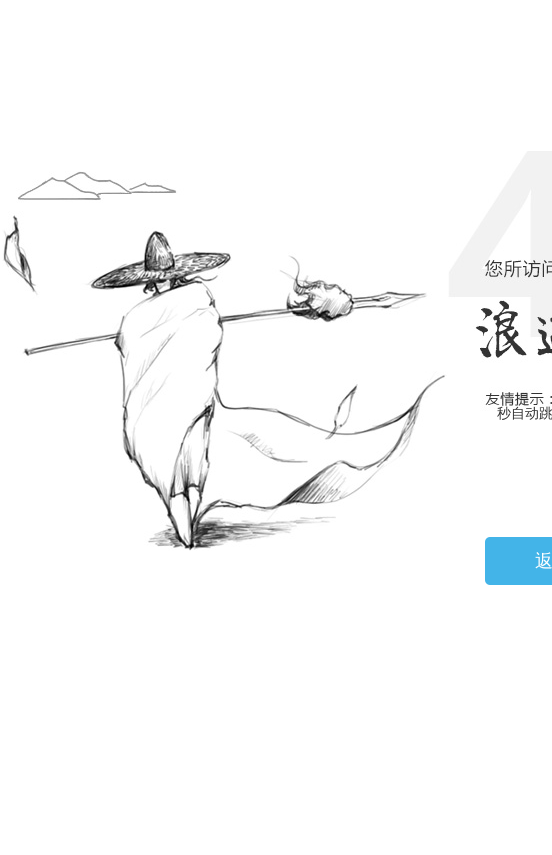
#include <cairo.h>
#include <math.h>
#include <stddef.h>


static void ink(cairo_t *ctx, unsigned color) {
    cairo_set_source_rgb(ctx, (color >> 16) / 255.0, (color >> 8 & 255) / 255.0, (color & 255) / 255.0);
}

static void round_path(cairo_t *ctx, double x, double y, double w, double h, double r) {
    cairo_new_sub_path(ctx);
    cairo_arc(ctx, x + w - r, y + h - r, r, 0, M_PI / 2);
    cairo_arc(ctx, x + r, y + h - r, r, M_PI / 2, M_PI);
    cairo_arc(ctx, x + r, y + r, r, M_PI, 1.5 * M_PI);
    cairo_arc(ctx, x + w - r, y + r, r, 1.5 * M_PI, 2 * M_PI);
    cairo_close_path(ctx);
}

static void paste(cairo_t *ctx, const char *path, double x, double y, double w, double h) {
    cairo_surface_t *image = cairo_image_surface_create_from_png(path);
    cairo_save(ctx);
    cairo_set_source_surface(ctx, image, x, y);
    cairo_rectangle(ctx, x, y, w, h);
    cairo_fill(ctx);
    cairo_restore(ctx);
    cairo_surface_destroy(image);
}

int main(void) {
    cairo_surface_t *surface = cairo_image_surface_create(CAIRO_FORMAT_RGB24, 552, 855);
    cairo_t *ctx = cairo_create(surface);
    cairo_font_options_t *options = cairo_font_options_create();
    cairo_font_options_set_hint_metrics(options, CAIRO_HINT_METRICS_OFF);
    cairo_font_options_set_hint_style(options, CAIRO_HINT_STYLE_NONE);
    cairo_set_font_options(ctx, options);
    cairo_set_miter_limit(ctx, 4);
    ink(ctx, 0xFFFFFF);
    cairo_paint(ctx);
    paste(ctx, "media/1.png", 2, 151, 550, 400);
    cairo_select_font_face(ctx, "WenQuanYi Zen Hei Medium", CAIRO_FONT_SLANT_NORMAL, CAIRO_FONT_WEIGHT_NORMAL);
    cairo_set_font_size(ctx, 14);
    ink(ctx, 0x333333);
    cairo_move_to(ctx, 497, 418);
    cairo_show_text(ctx, "秒自动跳");
    ink(ctx, 0x43B4E8);
    round_path(ctx, 485, 537, 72, 48, 5);
    cairo_fill(ctx);
    cairo_set_font_size(ctx, 18);
    ink(ctx, 0xFFFFFF);
    cairo_move_to(ctx, 535, 567);
    cairo_show_text(ctx, "返");
    cairo_surface_write_to_png(surface, "image.png");
    cairo_font_options_destroy(options);
    cairo_destroy(ctx);
    cairo_surface_destroy(surface);
    return 0;
}
